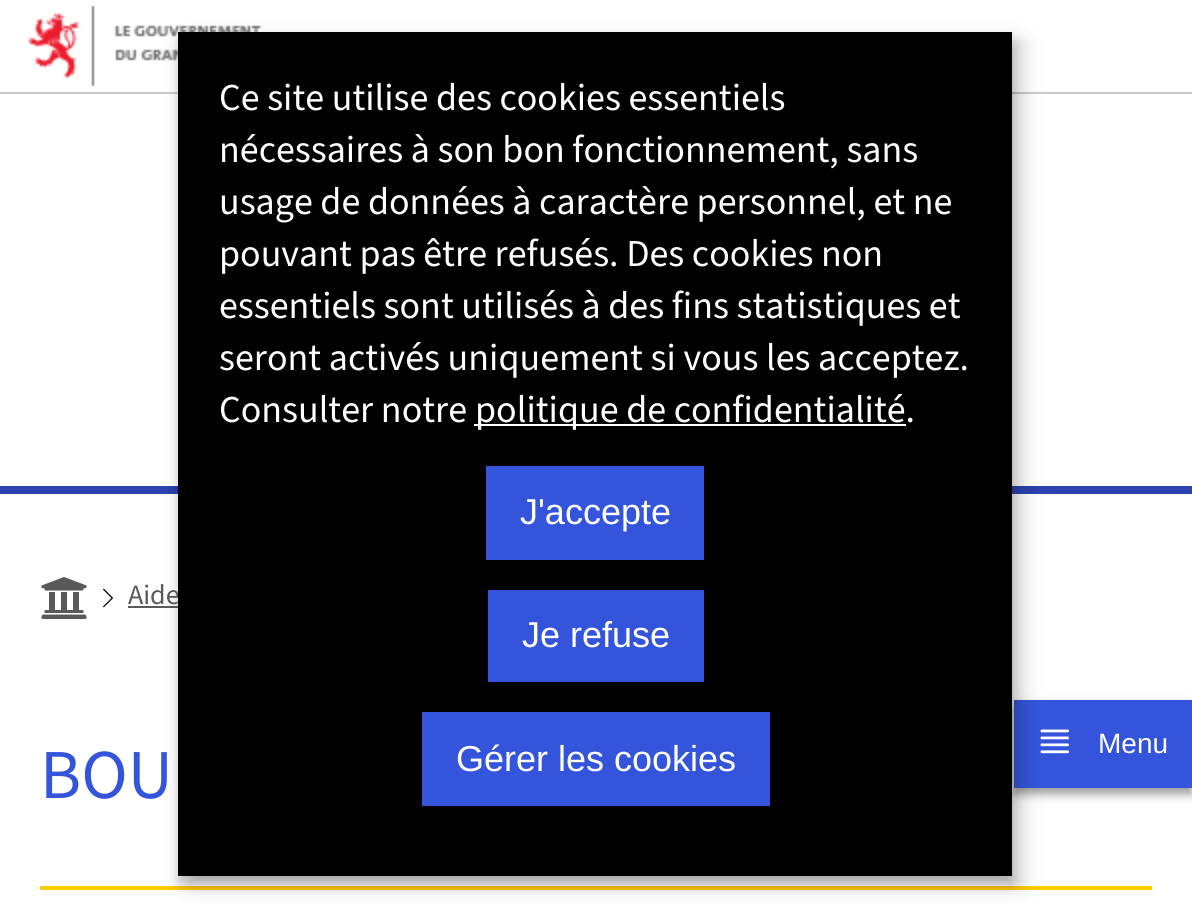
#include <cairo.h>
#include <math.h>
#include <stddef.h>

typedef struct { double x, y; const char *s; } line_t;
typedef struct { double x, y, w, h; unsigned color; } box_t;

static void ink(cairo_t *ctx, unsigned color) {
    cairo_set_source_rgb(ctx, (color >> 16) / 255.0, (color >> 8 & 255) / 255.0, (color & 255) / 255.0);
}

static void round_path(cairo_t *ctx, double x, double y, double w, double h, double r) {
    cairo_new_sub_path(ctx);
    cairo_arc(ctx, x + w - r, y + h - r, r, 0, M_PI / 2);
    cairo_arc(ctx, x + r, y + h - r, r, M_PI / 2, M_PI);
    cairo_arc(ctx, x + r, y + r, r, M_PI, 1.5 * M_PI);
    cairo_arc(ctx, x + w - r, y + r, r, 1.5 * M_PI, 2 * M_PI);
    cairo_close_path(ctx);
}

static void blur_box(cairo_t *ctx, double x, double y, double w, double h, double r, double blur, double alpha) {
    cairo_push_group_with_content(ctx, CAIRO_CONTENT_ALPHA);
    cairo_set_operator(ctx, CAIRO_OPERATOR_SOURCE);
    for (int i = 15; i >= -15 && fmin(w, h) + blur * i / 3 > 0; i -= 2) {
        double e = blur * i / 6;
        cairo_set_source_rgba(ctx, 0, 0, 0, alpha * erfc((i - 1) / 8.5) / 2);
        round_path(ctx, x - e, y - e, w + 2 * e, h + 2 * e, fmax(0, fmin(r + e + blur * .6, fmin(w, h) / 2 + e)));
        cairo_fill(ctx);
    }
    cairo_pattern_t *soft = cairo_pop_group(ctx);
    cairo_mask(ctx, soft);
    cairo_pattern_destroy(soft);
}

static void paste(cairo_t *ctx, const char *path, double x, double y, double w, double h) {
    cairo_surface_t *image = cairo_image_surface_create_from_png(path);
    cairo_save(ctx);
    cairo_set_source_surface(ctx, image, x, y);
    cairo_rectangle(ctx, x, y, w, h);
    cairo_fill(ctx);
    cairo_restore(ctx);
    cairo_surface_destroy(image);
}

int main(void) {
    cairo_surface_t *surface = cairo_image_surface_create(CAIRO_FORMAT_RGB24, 1192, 907);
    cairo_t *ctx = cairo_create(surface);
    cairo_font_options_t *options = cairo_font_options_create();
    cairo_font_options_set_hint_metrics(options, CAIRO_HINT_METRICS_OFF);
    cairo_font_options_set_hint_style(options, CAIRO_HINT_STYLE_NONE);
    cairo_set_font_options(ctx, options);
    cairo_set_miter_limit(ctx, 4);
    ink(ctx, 0xFFFFFF);
    cairo_paint(ctx);
    ink(ctx, 0xCCCACA);
    cairo_rectangle(ctx, 0, 92, 1192, 2);
    cairo_fill(ctx);
    paste(ctx, "media/1.png", 27, 6, 236, 80);
    {
        static const box_t items[] = {
            {128, 606, 50, 2, 0x595959},
            {40, 886, 1112, 4, 0xFFCC00},
            {0, 486, 1192, 8, 0x2A43AF},
        };
        for (size_t i = 0; i < sizeof items / sizeof *items; i++) {
            ink(ctx, items[i].color);
            cairo_rectangle(ctx, items[i].x, items[i].y, items[i].w, items[i].h);
            cairo_fill(ctx);
        }
    }
    ink(ctx, 0x000000);
    blur_box(ctx, 1014, 706, 178, 88, 0, 5, 0.4);
    ink(ctx, 0x3455DB);
    cairo_rectangle(ctx, 1014, 700, 178, 88);
    cairo_fill(ctx);
    paste(ctx, "media/4.png", 1040, 729, 29, 25);
    ink(ctx, 0x000000);
    blur_box(ctx, 188, 42, 834, 844, 0, 10, 0.19);
    blur_box(ctx, 178, 40, 834, 844, 0, 6, 0.2);
    cairo_select_font_face(ctx, "Source Sans 3", CAIRO_FONT_SLANT_NORMAL, CAIRO_FONT_WEIGHT_NORMAL);
    cairo_set_font_size(ctx, 28);
    ink(ctx, 0x595959);
    cairo_move_to(ctx, 128, 604);
    cairo_show_text(ctx, "Aide");
    ink(ctx, 0x000000);
    cairo_rectangle(ctx, 178, 32, 834, 844);
    cairo_fill(ctx);
    cairo_set_font_size(ctx, 38);
    ink(ctx, 0xFFFFFF);
    {
        static const line_t items[] = {
            {219, 110, "Ce site utilise des cookies essentiels"},
            {219, 162, "nécessaires à son bon fonctionnement, sans"},
            {219, 214, "usage de données à caractère personnel, et ne"},
            {219, 266, "pouvant pas être refusés. Des cookies non"},
            {219, 318, "essentiels sont utilisés à des fins statistiques et"},
            {219, 370, "seront activés uniquement si vous les acceptez."},
            {219, 422, "Consulter notre"},
        };
        for (size_t i = 0; i < sizeof items / sizeof *items; i++) {
            cairo_move_to(ctx, items[i].x, items[i].y);
            cairo_show_text(ctx, items[i].s);
        }
    }
    cairo_rectangle(ctx, 474, 424, 432, 2);
    cairo_fill(ctx);
    cairo_move_to(ctx, 475, 422);
    cairo_show_text(ctx, "politique de confidentialité.");
    ink(ctx, 0x3455DB);
    cairo_rectangle(ctx, 486, 466, 218, 94);
    cairo_fill(ctx);
    cairo_select_font_face(ctx, "Liberation Sans", CAIRO_FONT_SLANT_NORMAL, CAIRO_FONT_WEIGHT_NORMAL);
    cairo_set_font_size(ctx, 36);
    ink(ctx, 0xFFFFFF);
    cairo_move_to(ctx, 520, 524);
    cairo_show_text(ctx, "J'accepte");
    ink(ctx, 0x3455DB);
    cairo_rectangle(ctx, 488, 590, 216, 92);
    cairo_fill(ctx);
    ink(ctx, 0xFFFFFF);
    cairo_move_to(ctx, 522, 647);
    cairo_show_text(ctx, "Je refuse");
    ink(ctx, 0x3455DB);
    cairo_rectangle(ctx, 422, 712, 348, 94);
    cairo_fill(ctx);
    ink(ctx, 0xFFFFFF);
    cairo_move_to(ctx, 456, 771);
    cairo_show_text(ctx, "Gérer les cookies");
    paste(ctx, "media/2.png", 41, 577, 46, 42);
    paste(ctx, "media/3.png", 103, 588, 10, 20);
    cairo_select_font_face(ctx, "Source Sans 3", CAIRO_FONT_SLANT_NORMAL, CAIRO_FONT_WEIGHT_NORMAL);
    cairo_set_font_size(ctx, 70);
    ink(ctx, 0x3455DB);
    cairo_move_to(ctx, 40, 798);
    cairo_show_text(ctx, "BOU");
    cairo_select_font_face(ctx, "Liberation Sans", CAIRO_FONT_SLANT_NORMAL, CAIRO_FONT_WEIGHT_NORMAL);
    cairo_set_font_size(ctx, 28);
    ink(ctx, 0xFFFFFF);
    cairo_move_to(ctx, 1098, 753);
    cairo_show_text(ctx, "Menu");
    cairo_surface_write_to_png(surface, "image.png");
    cairo_font_options_destroy(options);
    cairo_destroy(ctx);
    cairo_surface_destroy(surface);
    return 0;
}
